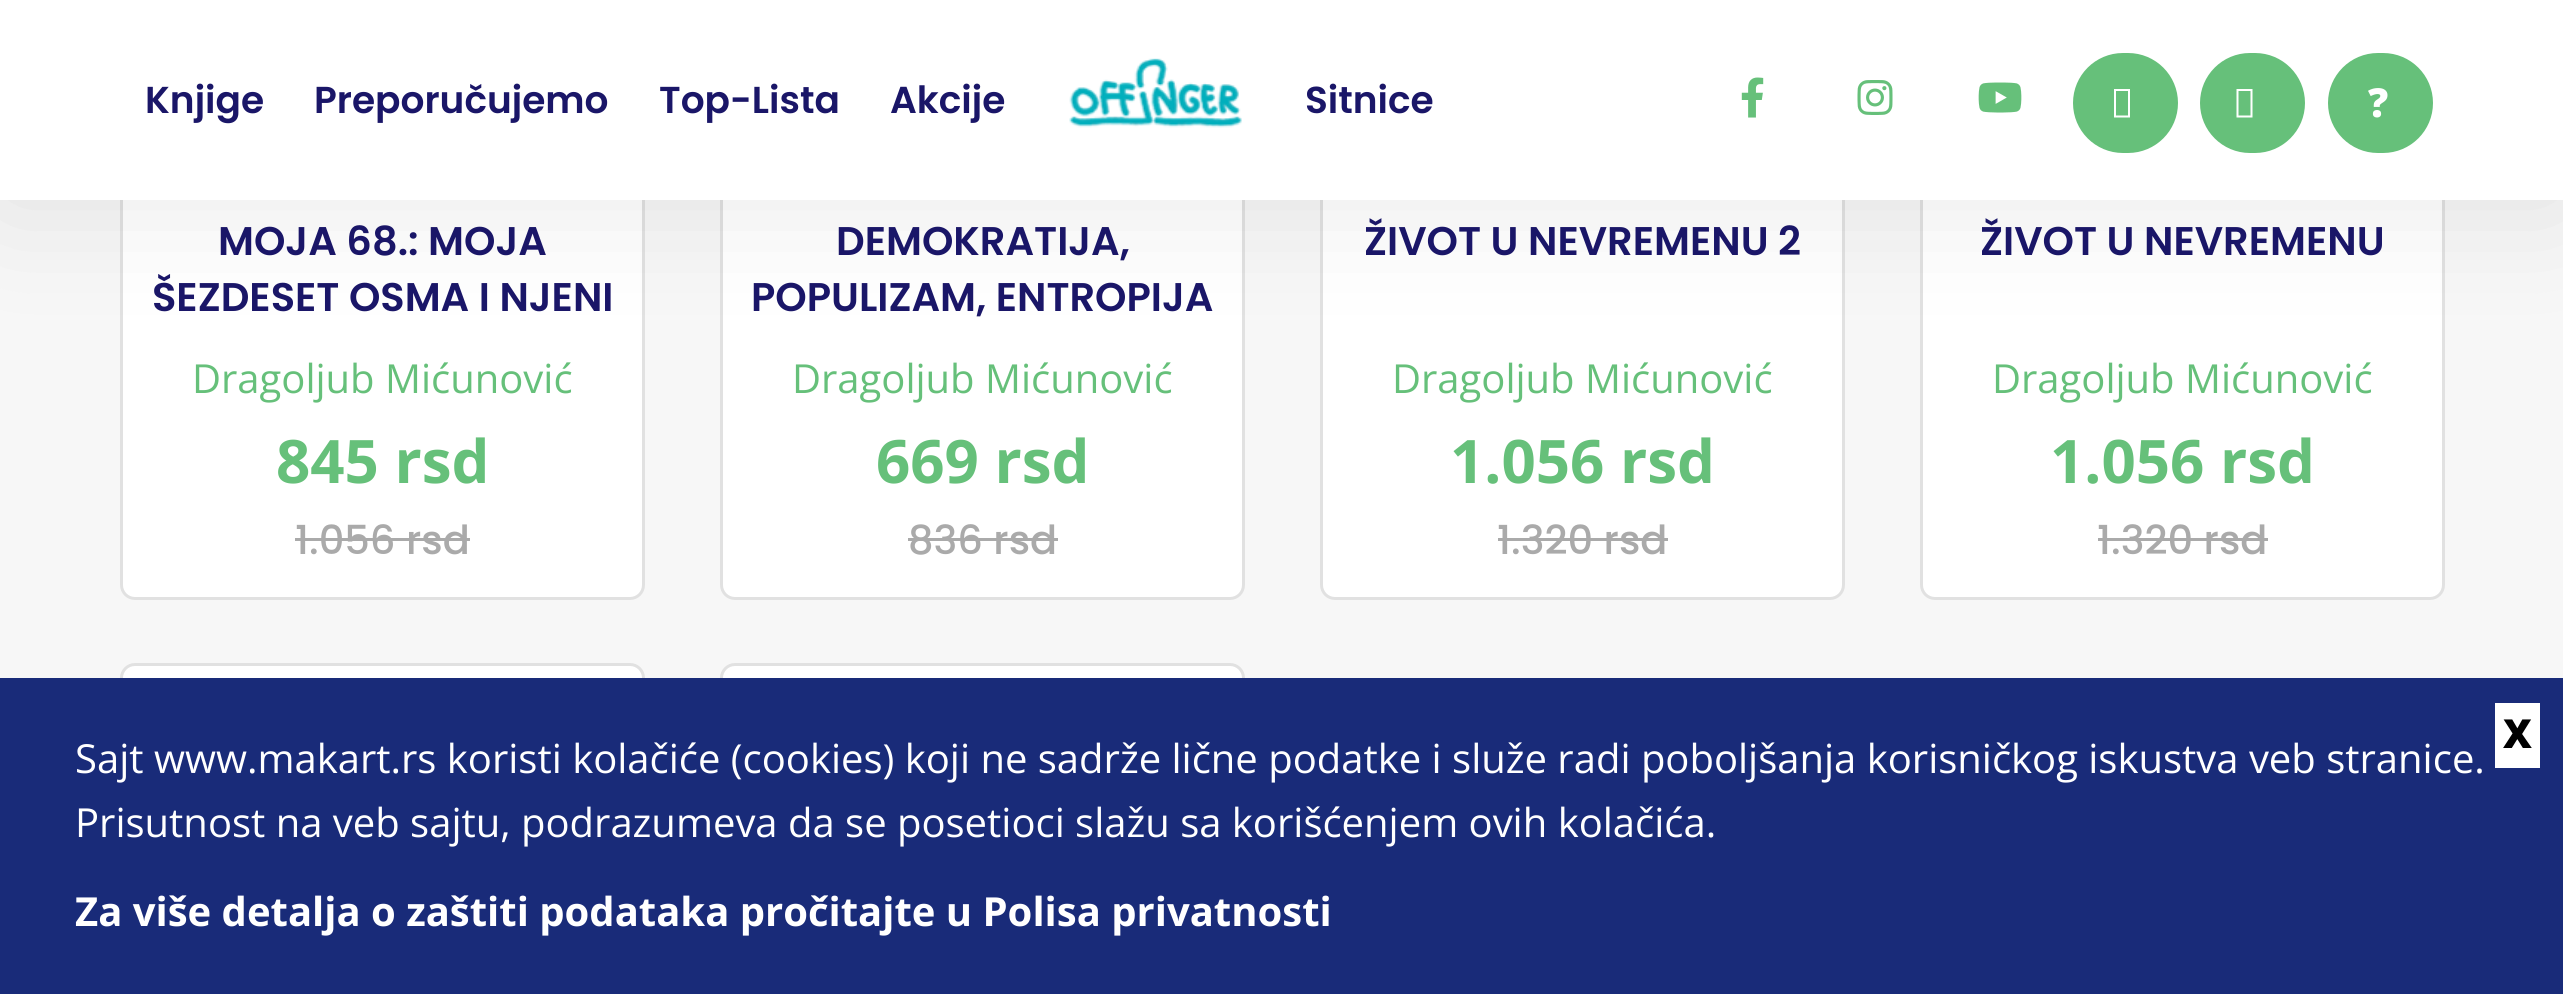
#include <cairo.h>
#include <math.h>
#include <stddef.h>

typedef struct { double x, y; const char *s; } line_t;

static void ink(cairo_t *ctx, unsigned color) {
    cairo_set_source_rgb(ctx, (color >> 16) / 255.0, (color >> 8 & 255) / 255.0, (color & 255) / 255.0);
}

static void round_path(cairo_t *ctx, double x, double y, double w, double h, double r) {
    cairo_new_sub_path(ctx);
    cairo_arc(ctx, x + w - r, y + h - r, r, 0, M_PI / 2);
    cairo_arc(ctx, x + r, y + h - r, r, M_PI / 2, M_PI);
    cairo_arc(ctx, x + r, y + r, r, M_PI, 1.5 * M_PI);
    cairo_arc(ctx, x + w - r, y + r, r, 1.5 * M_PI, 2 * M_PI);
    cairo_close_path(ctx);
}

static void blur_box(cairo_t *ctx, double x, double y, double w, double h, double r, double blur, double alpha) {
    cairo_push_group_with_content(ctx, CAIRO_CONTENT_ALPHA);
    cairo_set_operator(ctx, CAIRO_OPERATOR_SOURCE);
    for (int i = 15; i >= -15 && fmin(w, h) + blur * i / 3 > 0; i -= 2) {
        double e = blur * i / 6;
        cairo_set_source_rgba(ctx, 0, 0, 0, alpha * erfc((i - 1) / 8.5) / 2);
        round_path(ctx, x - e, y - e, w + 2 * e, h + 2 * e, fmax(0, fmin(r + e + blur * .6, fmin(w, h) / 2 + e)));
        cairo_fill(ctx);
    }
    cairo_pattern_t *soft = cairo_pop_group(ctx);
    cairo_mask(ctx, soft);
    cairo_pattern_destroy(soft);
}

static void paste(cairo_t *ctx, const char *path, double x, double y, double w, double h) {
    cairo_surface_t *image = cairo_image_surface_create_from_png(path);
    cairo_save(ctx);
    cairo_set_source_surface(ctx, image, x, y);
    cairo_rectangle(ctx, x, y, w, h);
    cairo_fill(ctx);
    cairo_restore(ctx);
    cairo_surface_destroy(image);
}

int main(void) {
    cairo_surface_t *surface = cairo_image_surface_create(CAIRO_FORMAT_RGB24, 2563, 994);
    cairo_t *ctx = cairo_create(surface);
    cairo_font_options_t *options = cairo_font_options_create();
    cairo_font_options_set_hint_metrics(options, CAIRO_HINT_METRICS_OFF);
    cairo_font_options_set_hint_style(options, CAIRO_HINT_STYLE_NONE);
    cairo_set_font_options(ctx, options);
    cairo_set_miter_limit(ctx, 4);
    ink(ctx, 0xF7F7F7);
    cairo_paint(ctx);
    ink(ctx, 0xFFFFFF);
    round_path(ctx, 120, -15, 525, 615, 15);
    cairo_fill(ctx);
    round_path(ctx, 121.5, -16.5, 522, 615, 13.5);
    cairo_set_source_rgba(ctx, 0, 0, 0, 0.12);
    cairo_set_line_width(ctx, 3);
    cairo_stroke(ctx);
    ink(ctx, 0xFFFFFF);
    round_path(ctx, 720, -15, 525, 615, 15);
    cairo_fill(ctx);
    round_path(ctx, 721.5, -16.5, 522, 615, 13.5);
    cairo_set_source_rgba(ctx, 0, 0, 0, 0.12);
    cairo_stroke(ctx);
    ink(ctx, 0xFFFFFF);
    round_path(ctx, 1320, -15, 525, 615, 15);
    cairo_fill(ctx);
    round_path(ctx, 1321.5, -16.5, 522, 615, 13.5);
    cairo_set_source_rgba(ctx, 0, 0, 0, 0.12);
    cairo_stroke(ctx);
    ink(ctx, 0xFFFFFF);
    round_path(ctx, 1920, -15, 525, 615, 15);
    cairo_fill(ctx);
    round_path(ctx, 1921.5, -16.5, 522, 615, 13.5);
    cairo_set_source_rgba(ctx, 0, 0, 0, 0.12);
    cairo_stroke(ctx);
    ink(ctx, 0x000000);
    blur_box(ctx, 0, 0, 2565, 200, 0, 62.5, 0.1);
    ink(ctx, 0xFFFFFF);
    cairo_rectangle(ctx, 0, 0, 2563, 200);
    cairo_fill(ctx);
    cairo_select_font_face(ctx, "Poppins SemiBold", CAIRO_FONT_SLANT_NORMAL, CAIRO_FONT_WEIGHT_NORMAL);
    cairo_set_font_size(ctx, 37.5);
    ink(ctx, 0x1A1668);
    {
        static const line_t items[] = {
            {145, 113, "Knjige"},
            {314, 113, "Preporučujemo"},
            {659, 113, "Top-Lista"},
            {890, 113, "Akcije"},
        };
        for (size_t i = 0; i < sizeof items / sizeof *items; i++) {
            cairo_move_to(ctx, items[i].x, items[i].y);
            cairo_show_text(ctx, items[i].s);
        }
    }
    paste(ctx, "media/1.png", 1069, 58, 173, 70);
    cairo_move_to(ctx, 1305, 113);
    cairo_show_text(ctx, "Sitnice");
    paste(ctx, "media/2.png", 1741, 77, 23, 41);
    paste(ctx, "media/3.png", 1857, 80, 36, 35);
    paste(ctx, "media/4.png", 1978, 82, 44, 31);
    ink(ctx, 0x66C07A);
    round_path(ctx, 2074.5, 54.5, 102, 97, 48.5);
    cairo_fill_preserve(ctx);
    cairo_stroke(ctx);
    ink(ctx, 0xFFFFFF);
    cairo_new_path(ctx);
    cairo_move_to(ctx, 2114, 117.5);
    cairo_line_to(ctx, 2114, 89);
    cairo_line_to(ctx, 2130, 89);
    cairo_line_to(ctx, 2130, 117.5);
    cairo_close_path(ctx);
    cairo_move_to(ctx, 2116, 115.5);
    cairo_line_to(ctx, 2128, 115.5);
    cairo_line_to(ctx, 2128, 91);
    cairo_line_to(ctx, 2116, 91);
    cairo_close_path(ctx);
    cairo_fill(ctx);
    ink(ctx, 0x66C07A);
    round_path(ctx, 2201.5, 54.5, 102, 97, 48.5);
    cairo_fill_preserve(ctx);
    cairo_stroke(ctx);
    ink(ctx, 0xFFFFFF);
    cairo_new_path(ctx);
    cairo_move_to(ctx, 2236.5, 117.5);
    cairo_line_to(ctx, 2236.5, 89);
    cairo_line_to(ctx, 2252.5, 89);
    cairo_line_to(ctx, 2252.5, 117.5);
    cairo_close_path(ctx);
    cairo_move_to(ctx, 2238.5, 115.5);
    cairo_line_to(ctx, 2250.5, 115.5);
    cairo_line_to(ctx, 2250.5, 91);
    cairo_line_to(ctx, 2238.5, 91);
    cairo_close_path(ctx);
    cairo_fill(ctx);
    ink(ctx, 0x66C07A);
    round_path(ctx, 2329.5, 54.5, 102, 97, 48.5);
    cairo_fill_preserve(ctx);
    cairo_stroke(ctx);
    cairo_select_font_face(ctx, "Noto Sans Black", CAIRO_FONT_SLANT_NORMAL, CAIRO_FONT_WEIGHT_NORMAL);
    cairo_set_font_size(ctx, 40);
    ink(ctx, 0xFFFFFF);
    cairo_move_to(ctx, 2368, 117);
    cairo_show_text(ctx, "?");
    cairo_select_font_face(ctx, "Poppins SemiBold", CAIRO_FONT_SLANT_NORMAL, CAIRO_FONT_WEIGHT_NORMAL);
    ink(ctx, 0x1A1668);
    cairo_move_to(ctx, 218, 255);
    cairo_show_text(ctx, "MOJA 68.: MOJA");
    cairo_move_to(ctx, 152, 311);
    cairo_show_text(ctx, "ŠEZDESET OSMA I NJENI");
    cairo_select_font_face(ctx, "Open Sans", CAIRO_FONT_SLANT_NORMAL, CAIRO_FONT_WEIGHT_NORMAL);
    ink(ctx, 0x66C07A);
    cairo_move_to(ctx, 192, 393);
    cairo_show_text(ctx, "Dragoljub Mićunović");
    cairo_select_font_face(ctx, "Open Sans", CAIRO_FONT_SLANT_NORMAL, CAIRO_FONT_WEIGHT_BOLD);
    cairo_set_font_size(ctx, 60);
    cairo_move_to(ctx, 276, 483);
    cairo_show_text(ctx, "845 rsd");
    cairo_select_font_face(ctx, "Poppins Medium", CAIRO_FONT_SLANT_NORMAL, CAIRO_FONT_WEIGHT_NORMAL);
    cairo_set_font_size(ctx, 40);
    ink(ctx, 0xAAAAAA);
    cairo_move_to(ctx, 295, 554);
    cairo_show_text(ctx, "1.056 rsd");
    cairo_rectangle(ctx, 295, 538, 175, 3);
    cairo_fill(ctx);
    cairo_select_font_face(ctx, "Poppins SemiBold", CAIRO_FONT_SLANT_NORMAL, CAIRO_FONT_WEIGHT_NORMAL);
    ink(ctx, 0x1A1668);
    cairo_move_to(ctx, 836, 255);
    cairo_show_text(ctx, "DEMOKRATIJA,");
    cairo_move_to(ctx, 751, 311);
    cairo_show_text(ctx, "POPULIZAM, ENTROPIJA");
    cairo_select_font_face(ctx, "Open Sans", CAIRO_FONT_SLANT_NORMAL, CAIRO_FONT_WEIGHT_NORMAL);
    ink(ctx, 0x66C07A);
    cairo_move_to(ctx, 792, 393);
    cairo_show_text(ctx, "Dragoljub Mićunović");
    cairo_select_font_face(ctx, "Open Sans", CAIRO_FONT_SLANT_NORMAL, CAIRO_FONT_WEIGHT_BOLD);
    cairo_set_font_size(ctx, 60);
    cairo_move_to(ctx, 876, 483);
    cairo_show_text(ctx, "669 rsd");
    cairo_select_font_face(ctx, "Poppins Medium", CAIRO_FONT_SLANT_NORMAL, CAIRO_FONT_WEIGHT_NORMAL);
    cairo_set_font_size(ctx, 40);
    ink(ctx, 0xAAAAAA);
    cairo_move_to(ctx, 908, 554);
    cairo_show_text(ctx, "836 rsd");
    cairo_rectangle(ctx, 908, 538, 150, 3);
    cairo_fill(ctx);
    cairo_select_font_face(ctx, "Poppins SemiBold", CAIRO_FONT_SLANT_NORMAL, CAIRO_FONT_WEIGHT_NORMAL);
    ink(ctx, 0x1A1668);
    cairo_move_to(ctx, 1364, 255);
    cairo_show_text(ctx, "ŽIVOT U NEVREMENU 2");
    cairo_select_font_face(ctx, "Open Sans", CAIRO_FONT_SLANT_NORMAL, CAIRO_FONT_WEIGHT_NORMAL);
    ink(ctx, 0x66C07A);
    cairo_move_to(ctx, 1392, 393);
    cairo_show_text(ctx, "Dragoljub Mićunović");
    cairo_select_font_face(ctx, "Open Sans", CAIRO_FONT_SLANT_NORMAL, CAIRO_FONT_WEIGHT_BOLD);
    cairo_set_font_size(ctx, 60);
    cairo_move_to(ctx, 1450, 483);
    cairo_show_text(ctx, "1.056 rsd");
    cairo_select_font_face(ctx, "Poppins Medium", CAIRO_FONT_SLANT_NORMAL, CAIRO_FONT_WEIGHT_NORMAL);
    cairo_set_font_size(ctx, 40);
    ink(ctx, 0xAAAAAA);
    cairo_move_to(ctx, 1497, 554);
    cairo_show_text(ctx, "1.320 rsd");
    cairo_rectangle(ctx, 1498, 538, 170, 3);
    cairo_fill(ctx);
    cairo_select_font_face(ctx, "Poppins SemiBold", CAIRO_FONT_SLANT_NORMAL, CAIRO_FONT_WEIGHT_NORMAL);
    ink(ctx, 0x1A1668);
    cairo_move_to(ctx, 1980, 255);
    cairo_show_text(ctx, "ŽIVOT U NEVREMENU");
    cairo_select_font_face(ctx, "Open Sans", CAIRO_FONT_SLANT_NORMAL, CAIRO_FONT_WEIGHT_NORMAL);
    ink(ctx, 0x66C07A);
    cairo_move_to(ctx, 1992, 393);
    cairo_show_text(ctx, "Dragoljub Mićunović");
    cairo_select_font_face(ctx, "Open Sans", CAIRO_FONT_SLANT_NORMAL, CAIRO_FONT_WEIGHT_BOLD);
    cairo_set_font_size(ctx, 60);
    cairo_move_to(ctx, 2050, 483);
    cairo_show_text(ctx, "1.056 rsd");
    cairo_select_font_face(ctx, "Poppins Medium", CAIRO_FONT_SLANT_NORMAL, CAIRO_FONT_WEIGHT_NORMAL);
    cairo_set_font_size(ctx, 40);
    ink(ctx, 0xAAAAAA);
    cairo_move_to(ctx, 2097, 554);
    cairo_show_text(ctx, "1.320 rsd");
    cairo_rectangle(ctx, 2098, 538, 170, 3);
    cairo_fill(ctx);
    ink(ctx, 0xFFFFFF);
    round_path(ctx, 120, 663, 525, 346, 15);
    cairo_fill(ctx);
    round_path(ctx, 121.5, 664.5, 522, 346, 13.5);
    cairo_set_source_rgba(ctx, 0, 0, 0, 0.12);
    cairo_stroke(ctx);
    ink(ctx, 0xFFFFFF);
    round_path(ctx, 720, 663, 525, 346, 15);
    cairo_fill(ctx);
    round_path(ctx, 721.5, 664.5, 522, 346, 13.5);
    cairo_set_source_rgba(ctx, 0, 0, 0, 0.12);
    cairo_stroke(ctx);
    ink(ctx, 0x192B79);
    cairo_rectangle(ctx, 0, 678, 2563, 316);
    cairo_fill(ctx);
    ink(ctx, 0xFFFFFF);
    cairo_rectangle(ctx, 2495, 703, 45, 65);
    cairo_fill(ctx);
    cairo_select_font_face(ctx, "Noto Sans Black", CAIRO_FONT_SLANT_NORMAL, CAIRO_FONT_WEIGHT_NORMAL);
    ink(ctx, 0x000000);
    cairo_move_to(ctx, 2503, 748);
    cairo_show_text(ctx, "X");
    cairo_select_font_face(ctx, "Open Sans", CAIRO_FONT_SLANT_NORMAL, CAIRO_FONT_WEIGHT_BOLD);
    ink(ctx, 0xFFFFFF);
    cairo_move_to(ctx, 75, 926);
    cairo_show_text(ctx, "Za više detalja o zaštiti podataka pročitajte u Polisa privatnosti");
    cairo_select_font_face(ctx, "Open Sans", CAIRO_FONT_SLANT_NORMAL, CAIRO_FONT_WEIGHT_NORMAL);
    cairo_move_to(ctx, 75, 773);
    cairo_show_text(ctx, "Sajt www.makart.rs koristi kolačiće (cookies) koji ne sadrže lične podatke i služe radi poboljšanja korisničkog iskustva veb stranice.");
    cairo_move_to(ctx, 75, 837);
    cairo_show_text(ctx, "Prisutnost na veb sajtu, podrazumeva da se posetioci slažu sa korišćenjem ovih kolačića.");
    cairo_surface_write_to_png(surface, "image.png");
    cairo_font_options_destroy(options);
    cairo_destroy(ctx);
    cairo_surface_destroy(surface);
    return 0;
}
